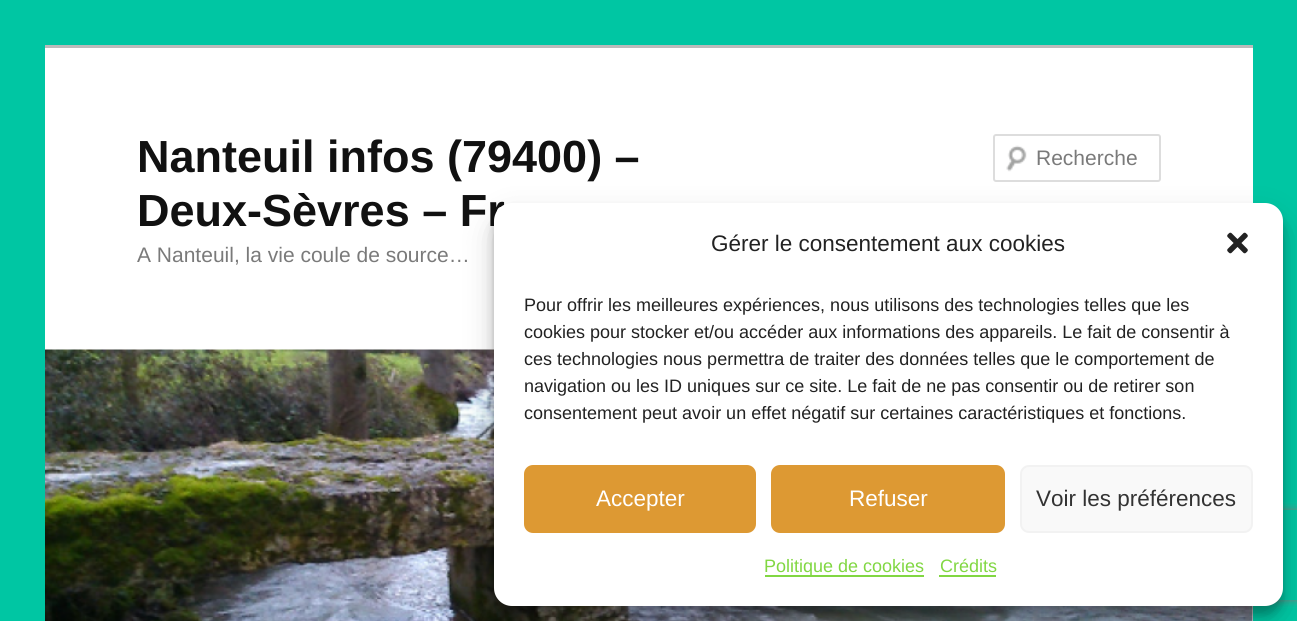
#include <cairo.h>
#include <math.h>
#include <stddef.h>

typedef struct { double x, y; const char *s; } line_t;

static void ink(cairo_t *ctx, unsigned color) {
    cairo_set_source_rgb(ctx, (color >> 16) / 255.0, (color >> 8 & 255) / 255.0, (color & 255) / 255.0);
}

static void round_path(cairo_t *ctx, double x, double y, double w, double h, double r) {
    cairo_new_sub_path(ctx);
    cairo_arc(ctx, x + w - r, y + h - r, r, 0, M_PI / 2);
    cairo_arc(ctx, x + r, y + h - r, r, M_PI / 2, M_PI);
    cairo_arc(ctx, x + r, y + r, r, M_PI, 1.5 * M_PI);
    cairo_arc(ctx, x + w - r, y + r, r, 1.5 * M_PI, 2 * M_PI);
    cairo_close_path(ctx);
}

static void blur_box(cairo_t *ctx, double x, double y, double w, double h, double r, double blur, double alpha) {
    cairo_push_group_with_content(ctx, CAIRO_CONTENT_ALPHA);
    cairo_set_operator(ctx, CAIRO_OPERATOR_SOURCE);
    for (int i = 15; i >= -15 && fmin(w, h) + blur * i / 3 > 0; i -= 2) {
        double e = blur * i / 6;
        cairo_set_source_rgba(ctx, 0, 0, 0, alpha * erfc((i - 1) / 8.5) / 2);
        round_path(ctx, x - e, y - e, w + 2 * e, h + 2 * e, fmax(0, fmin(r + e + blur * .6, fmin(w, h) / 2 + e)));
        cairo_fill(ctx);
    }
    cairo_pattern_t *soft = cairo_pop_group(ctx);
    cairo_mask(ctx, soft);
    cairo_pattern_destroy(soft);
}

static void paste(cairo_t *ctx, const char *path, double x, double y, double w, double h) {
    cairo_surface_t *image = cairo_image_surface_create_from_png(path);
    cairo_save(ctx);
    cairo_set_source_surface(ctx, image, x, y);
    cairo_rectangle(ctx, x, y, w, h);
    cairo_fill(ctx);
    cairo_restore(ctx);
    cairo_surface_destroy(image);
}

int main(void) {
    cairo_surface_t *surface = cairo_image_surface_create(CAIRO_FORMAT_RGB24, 1297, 621);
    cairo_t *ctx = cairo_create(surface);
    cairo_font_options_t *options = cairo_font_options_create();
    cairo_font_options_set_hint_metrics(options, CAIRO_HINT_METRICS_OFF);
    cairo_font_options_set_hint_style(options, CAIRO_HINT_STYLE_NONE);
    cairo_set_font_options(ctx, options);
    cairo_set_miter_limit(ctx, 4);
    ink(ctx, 0x00C6A3);
    cairo_paint(ctx);
    ink(ctx, 0xFFFFFF);
    cairo_rectangle(ctx, 45, 48, 1208, 573);
    cairo_fill(ctx);
    ink(ctx, 0xBBBBBB);
    cairo_rectangle(ctx, 45, 45, 1208, 3);
    cairo_fill(ctx);
    cairo_select_font_face(ctx, "Liberation Sans", CAIRO_FONT_SLANT_NORMAL, CAIRO_FONT_WEIGHT_BOLD);
    cairo_set_font_size(ctx, 45);
    ink(ctx, 0x111111);
    cairo_move_to(ctx, 137, 172);
    cairo_show_text(ctx, "Nanteuil infos (79400) –");
    cairo_move_to(ctx, 137, 226);
    cairo_show_text(ctx, "Deux-Sèvres – Fr");
    cairo_select_font_face(ctx, "Liberation Sans", CAIRO_FONT_SLANT_NORMAL, CAIRO_FONT_WEIGHT_NORMAL);
    cairo_set_font_size(ctx, 21);
    ink(ctx, 0x7A7A7A);
    cairo_move_to(ctx, 137, 262);
    cairo_show_text(ctx, "A Nanteuil, la vie coule de source…");
    paste(ctx, "media/1.png", 1006, 145, 21, 27);
    round_path(ctx, 994, 135, 166, 46, 2);
    ink(ctx, 0xDDDDDD);
    cairo_stroke(ctx);
    ink(ctx, 0x7A7A7A);
    cairo_move_to(ctx, 1036, 165);
    cairo_show_text(ctx, "Recherche");
    cairo_save(ctx);
    cairo_set_fill_rule(ctx, CAIRO_FILL_RULE_EVEN_ODD);
    cairo_new_path(ctx);
    cairo_move_to(ctx, 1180, 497);
    cairo_line_to(ctx, 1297, 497);
    cairo_line_to(ctx, 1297, 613);
    cairo_line_to(ctx, 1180, 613);
    cairo_close_path(ctx);
    cairo_move_to(ctx, 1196, 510);
    cairo_line_to(ctx, 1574, 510);
    cairo_curve_to(ctx, 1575.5, 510, 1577, 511.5, 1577, 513);
    cairo_line_to(ctx, 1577, 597);
    cairo_curve_to(ctx, 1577, 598.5, 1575.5, 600, 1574, 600);
    cairo_line_to(ctx, 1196, 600);
    cairo_curve_to(ctx, 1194.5, 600, 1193, 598.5, 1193, 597);
    cairo_line_to(ctx, 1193, 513);
    cairo_curve_to(ctx, 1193, 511.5, 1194.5, 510, 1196, 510);
    cairo_close_path(ctx);
    cairo_clip(ctx);
    ink(ctx, 0x808080);
    blur_box(ctx, 1193, 510, 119, 90, 3, 4, 1);
    cairo_restore(ctx);
    paste(ctx, "media/2.png", 45, 349, 1208, 272);
    ink(ctx, 0x000000);
    blur_box(ctx, 494, 212, 789, 403, 18, 4.5, 0.23);
    blur_box(ctx, 494, 218, 789, 403, 18, 15, 0.19);
    ink(ctx, 0xFFFFFF);
    round_path(ctx, 494, 203, 789, 403, 18);
    cairo_fill(ctx);
    cairo_set_font_size(ctx, 22.5);
    ink(ctx, 0x222222);
    cairo_move_to(ctx, 711, 251);
    cairo_show_text(ctx, "Gérer le consentement aux cookies");
    paste(ctx, "media/3.png", 1227, 232, 21, 22);
    cairo_set_font_size(ctx, 18);
    {
        static const line_t items[] = {
            {524, 311, "Pour offrir les meilleures expériences, nous utilisons des technologies telles que les"},
            {524, 338, "cookies pour stocker et/ou accéder aux informations des appareils. Le fait de consentir à"},
            {524, 365, "ces technologies nous permettra de traiter des données telles que le comportement de"},
            {524, 392, "navigation ou les ID uniques sur ce site. Le fait de ne pas consentir ou de retirer son"},
            {524, 419, "consentement peut avoir un effet négatif sur certaines caractéristiques et fonctions."},
        };
        for (size_t i = 0; i < sizeof items / sizeof *items; i++) {
            cairo_move_to(ctx, items[i].x, items[i].y);
            cairo_show_text(ctx, items[i].s);
        }
    }
    ink(ctx, 0xDD9933);
    round_path(ctx, 525, 466, 230, 66, 8);
    cairo_fill_preserve(ctx);
    cairo_stroke(ctx);
    cairo_set_font_size(ctx, 22.5);
    ink(ctx, 0xFFFFFF);
    cairo_move_to(ctx, 596, 506);
    cairo_show_text(ctx, "Accepter");
    ink(ctx, 0xDD9933);
    round_path(ctx, 772, 466, 232, 66, 8);
    cairo_fill_preserve(ctx);
    cairo_stroke(ctx);
    ink(ctx, 0xFFFFFF);
    cairo_move_to(ctx, 849, 506);
    cairo_show_text(ctx, "Refuser");
    ink(ctx, 0xF9F9F9);
    round_path(ctx, 1021, 466, 231, 66, 8);
    cairo_fill_preserve(ctx);
    ink(ctx, 0xF2F2F2);
    cairo_stroke(ctx);
    ink(ctx, 0x333333);
    cairo_move_to(ctx, 1036, 506);
    cairo_show_text(ctx, "Voir les préférences");
    ink(ctx, 0x81D742);
    cairo_rectangle(ctx, 765, 575, 159, 2);
    cairo_fill(ctx);
    cairo_set_font_size(ctx, 18);
    cairo_move_to(ctx, 764, 572);
    cairo_show_text(ctx, "Politique de cookies");
    cairo_move_to(ctx, 940, 572);
    cairo_show_text(ctx, "Crédits");
    cairo_rectangle(ctx, 939, 575, 57, 2);
    cairo_fill(ctx);
    cairo_surface_write_to_png(surface, "image.png");
    cairo_font_options_destroy(options);
    cairo_destroy(ctx);
    cairo_surface_destroy(surface);
    return 0;
}
